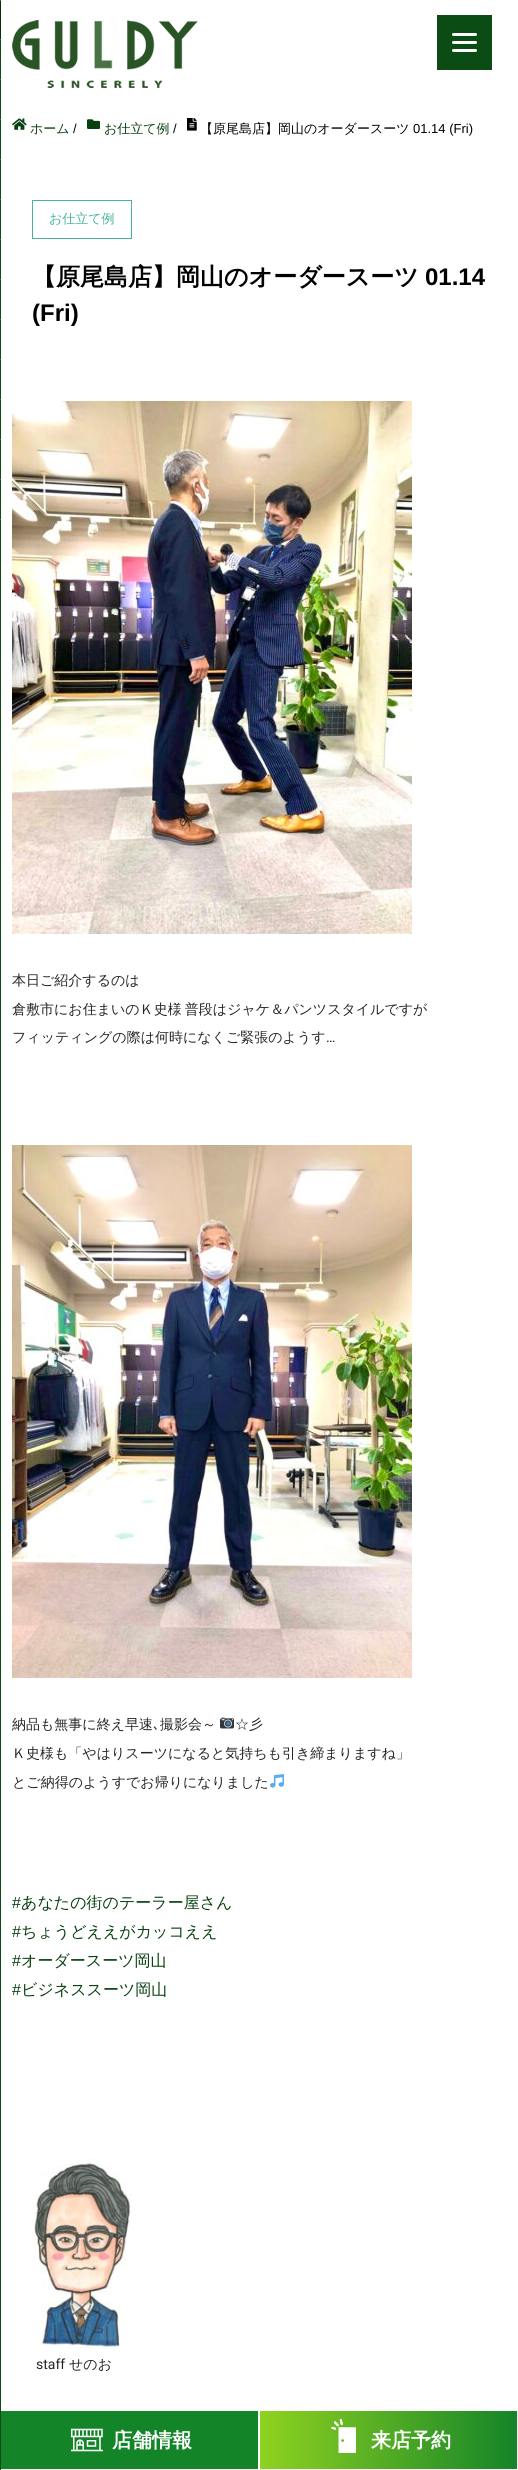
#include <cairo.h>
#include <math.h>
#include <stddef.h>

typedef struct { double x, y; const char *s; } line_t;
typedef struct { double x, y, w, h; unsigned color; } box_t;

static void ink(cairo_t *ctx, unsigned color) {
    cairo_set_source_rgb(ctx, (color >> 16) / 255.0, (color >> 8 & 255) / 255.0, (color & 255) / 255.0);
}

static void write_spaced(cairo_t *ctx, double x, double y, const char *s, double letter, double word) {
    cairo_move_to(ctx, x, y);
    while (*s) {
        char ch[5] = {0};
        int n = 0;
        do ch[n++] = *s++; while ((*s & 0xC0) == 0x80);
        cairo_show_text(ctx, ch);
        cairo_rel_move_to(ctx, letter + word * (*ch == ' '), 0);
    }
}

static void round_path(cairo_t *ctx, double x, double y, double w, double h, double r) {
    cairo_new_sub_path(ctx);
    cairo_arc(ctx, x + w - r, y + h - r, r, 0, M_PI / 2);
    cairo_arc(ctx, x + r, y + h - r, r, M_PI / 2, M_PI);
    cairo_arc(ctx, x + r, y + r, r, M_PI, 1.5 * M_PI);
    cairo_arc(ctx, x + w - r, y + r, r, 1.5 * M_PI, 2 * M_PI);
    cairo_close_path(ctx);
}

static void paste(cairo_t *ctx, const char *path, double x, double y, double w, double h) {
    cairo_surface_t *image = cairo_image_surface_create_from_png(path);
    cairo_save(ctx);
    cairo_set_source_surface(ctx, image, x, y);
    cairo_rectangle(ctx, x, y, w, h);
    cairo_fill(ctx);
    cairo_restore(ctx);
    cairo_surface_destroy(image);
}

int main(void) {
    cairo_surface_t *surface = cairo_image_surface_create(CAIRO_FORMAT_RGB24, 518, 2470);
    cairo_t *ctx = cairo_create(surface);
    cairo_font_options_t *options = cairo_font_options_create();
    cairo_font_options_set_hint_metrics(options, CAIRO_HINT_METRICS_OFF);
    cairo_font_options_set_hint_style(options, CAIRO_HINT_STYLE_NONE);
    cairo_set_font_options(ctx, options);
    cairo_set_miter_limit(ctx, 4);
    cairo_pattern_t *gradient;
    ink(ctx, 0xFFFFFF);
    cairo_paint(ctx);
    {
        static const box_t items[] = {
            {0, 40, 1, 2430, 0x0A4C14},
            {0, 0, 1, 40, 0x062D0B},
            {0, 0, 1, 1, 0x497344},
            {0, 39, 1, 1, 0x497344},
            {0, 79, 1, 1, 0x497344},
            {0, 119, 1, 1, 0x497344},
            {0, 159, 1, 1, 0x497344},
            {0, 199, 1, 1, 0x497344},
            {0, 239, 1, 1, 0x497344},
            {0, 279, 1, 1, 0x497344},
            {0, 319, 1, 1, 0x497344},
            {0, 359, 1, 1, 0x497344},
            {0, 399, 1, 1, 0x497344},
            {0, 439, 1, 1, 0x497344},
            {0, 479, 1, 1, 0x497344},
            {0, 519, 1, 1, 0x497344},
        };
        for (size_t i = 0; i < sizeof items / sizeof *items; i++) {
            ink(ctx, items[i].color);
            cairo_rectangle(ctx, items[i].x, items[i].y, items[i].w, items[i].h);
            cairo_fill(ctx);
        }
    }
    paste(ctx, "media/1.png", 12, 20, 186, 68);
    ink(ctx, 0x0A4C14);
    cairo_rectangle(ctx, 437, 15, 55, 55);
    cairo_fill(ctx);
    ink(ctx, 0xFFFFFF);
    round_path(ctx, 452, 41, 25, 3, 1.5);
    cairo_fill(ctx);
    round_path(ctx, 452, 33, 25, 3, 1.5);
    cairo_fill(ctx);
    round_path(ctx, 452, 49, 25, 3, 1.5);
    cairo_fill(ctx);
    paste(ctx, "media/2.png", 12, 118, 15, 12);
    cairo_select_font_face(ctx, "WenQuanYi Zen Hei Medium", CAIRO_FONT_SLANT_NORMAL, CAIRO_FONT_WEIGHT_NORMAL);
    cairo_set_font_size(ctx, 13);
    ink(ctx, 0x084010);
    cairo_move_to(ctx, 30, 133);
    cairo_show_text(ctx, "ホーム");
    cairo_select_font_face(ctx, "Liberation Sans", CAIRO_FONT_SLANT_NORMAL, CAIRO_FONT_WEIGHT_NORMAL);
    ink(ctx, 0x000000);
    cairo_move_to(ctx, 73, 133);
    cairo_show_text(ctx, "/");
    paste(ctx, "media/3.png", 87, 119, 13, 10);
    cairo_select_font_face(ctx, "WenQuanYi Zen Hei Medium", CAIRO_FONT_SLANT_NORMAL, CAIRO_FONT_WEIGHT_NORMAL);
    ink(ctx, 0x084010);
    cairo_move_to(ctx, 104, 133);
    cairo_show_text(ctx, "お仕立て例");
    cairo_select_font_face(ctx, "Liberation Sans", CAIRO_FONT_SLANT_NORMAL, CAIRO_FONT_WEIGHT_NORMAL);
    ink(ctx, 0x000000);
    cairo_move_to(ctx, 173, 133);
    cairo_show_text(ctx, "/");
    paste(ctx, "media/4.png", 187, 118, 10, 13);
    cairo_select_font_face(ctx, "WenQuanYi Zen Hei Medium", CAIRO_FONT_SLANT_NORMAL, CAIRO_FONT_WEIGHT_NORMAL);
    cairo_move_to(ctx, 200, 133);
    cairo_show_text(ctx, "【原尾島店】岡山のオーダースーツ");
    cairo_select_font_face(ctx, "Liberation Sans", CAIRO_FONT_SLANT_NORMAL, CAIRO_FONT_WEIGHT_NORMAL);
    cairo_move_to(ctx, 413, 133);
    cairo_show_text(ctx, "01.14 (Fri)");
    cairo_rectangle(ctx, 32.5, 200.5, 99, 38);
    ink(ctx, 0x47B39D);
    cairo_set_line_width(ctx, 1);
    cairo_stroke(ctx);
    cairo_select_font_face(ctx, "WenQuanYi Zen Hei Medium", CAIRO_FONT_SLANT_NORMAL, CAIRO_FONT_WEIGHT_NORMAL);
    cairo_move_to(ctx, 49, 223);
    cairo_show_text(ctx, "お仕立て例");
    cairo_select_font_face(ctx, "WenQuanYi Zen Hei", CAIRO_FONT_SLANT_NORMAL, CAIRO_FONT_WEIGHT_BOLD);
    cairo_set_font_size(ctx, 24);
    ink(ctx, 0x000000);
    cairo_move_to(ctx, 32, 285);
    cairo_show_text(ctx, "【原尾島店】岡山のオーダースーツ");
    cairo_select_font_face(ctx, "Liberation Sans", CAIRO_FONT_SLANT_NORMAL, CAIRO_FONT_WEIGHT_BOLD);
    cairo_move_to(ctx, 425, 285);
    cairo_show_text(ctx, "01.14");
    cairo_move_to(ctx, 32, 321);
    cairo_show_text(ctx, "(Fri)");
    paste(ctx, "media/5.png", 12, 401, 400, 533);
    cairo_select_font_face(ctx, "WenQuanYi Zen Hei Medium", CAIRO_FONT_SLANT_NORMAL, CAIRO_FONT_WEIGHT_NORMAL);
    cairo_set_font_size(ctx, 14);
    ink(ctx, 0x262626);
    cairo_move_to(ctx, 12, 985);
    cairo_show_text(ctx, "本日ご紹介するのは");
    write_spaced(ctx, 12, 1014, "倉敷市にお住まいのＫ史様 普段はジャケ＆パンツスタイルですが", 0, -1);
    cairo_move_to(ctx, 12, 1042);
    cairo_show_text(ctx, "フィッティングの際は何時になくご緊張のようす");
    cairo_select_font_face(ctx, "Roboto", CAIRO_FONT_SLANT_NORMAL, CAIRO_FONT_WEIGHT_NORMAL);
    cairo_move_to(ctx, 326, 1042);
    cairo_show_text(ctx, "…");
    paste(ctx, "media/6.png", 12, 1145, 400, 533);
    cairo_select_font_face(ctx, "WenQuanYi Zen Hei Medium", CAIRO_FONT_SLANT_NORMAL, CAIRO_FONT_WEIGHT_NORMAL);
    cairo_move_to(ctx, 12, 1729);
    cairo_show_text(ctx, "納品も無事に終え早速");
    cairo_select_font_face(ctx, "IPAPGothic", CAIRO_FONT_SLANT_NORMAL, CAIRO_FONT_WEIGHT_NORMAL);
    cairo_move_to(ctx, 153, 1729);
    cairo_show_text(ctx, "､");
    cairo_select_font_face(ctx, "WenQuanYi Zen Hei Medium", CAIRO_FONT_SLANT_NORMAL, CAIRO_FONT_WEIGHT_NORMAL);
    cairo_move_to(ctx, 160, 1729);
    cairo_show_text(ctx, "撮影会～");
    paste(ctx, "media/7.png", 220, 1717, 14, 12);
    {
        static const line_t items[] = {
            {235, 1729, "☆彡"},
            {12, 1758, "Ｋ史様も「やはりスーツになると気持ちも引き締まりますね」"},
            {12, 1787, "とご納得のようすでお帰りになりました"},
        };
        for (size_t i = 0; i < sizeof items / sizeof *items; i++) {
            cairo_move_to(ctx, items[i].x, items[i].y);
            cairo_show_text(ctx, items[i].s);
        }
    }
    paste(ctx, "media/8.png", 270, 1774, 14, 14);
    cairo_select_font_face(ctx, "Liberation Sans", CAIRO_FONT_SLANT_NORMAL, CAIRO_FONT_WEIGHT_NORMAL);
    cairo_set_font_size(ctx, 16);
    ink(ctx, 0x084010);
    cairo_move_to(ctx, 12, 1908);
    cairo_show_text(ctx, "#");
    cairo_select_font_face(ctx, "WenQuanYi Zen Hei Medium", CAIRO_FONT_SLANT_NORMAL, CAIRO_FONT_WEIGHT_NORMAL);
    cairo_move_to(ctx, 21, 1908);
    cairo_show_text(ctx, "あなたの街のテーラー屋さん");
    cairo_select_font_face(ctx, "Liberation Sans", CAIRO_FONT_SLANT_NORMAL, CAIRO_FONT_WEIGHT_NORMAL);
    cairo_move_to(ctx, 12, 1937);
    cairo_show_text(ctx, "#");
    cairo_select_font_face(ctx, "WenQuanYi Zen Hei Medium", CAIRO_FONT_SLANT_NORMAL, CAIRO_FONT_WEIGHT_NORMAL);
    cairo_move_to(ctx, 21, 1937);
    cairo_show_text(ctx, "ちょうどええがカッコええ");
    cairo_select_font_face(ctx, "Liberation Sans", CAIRO_FONT_SLANT_NORMAL, CAIRO_FONT_WEIGHT_NORMAL);
    cairo_move_to(ctx, 12, 1966);
    cairo_show_text(ctx, "#");
    cairo_select_font_face(ctx, "WenQuanYi Zen Hei Medium", CAIRO_FONT_SLANT_NORMAL, CAIRO_FONT_WEIGHT_NORMAL);
    cairo_move_to(ctx, 21, 1966);
    cairo_show_text(ctx, "オーダースーツ岡山");
    cairo_select_font_face(ctx, "Liberation Sans", CAIRO_FONT_SLANT_NORMAL, CAIRO_FONT_WEIGHT_NORMAL);
    cairo_move_to(ctx, 12, 1995);
    cairo_show_text(ctx, "#");
    cairo_select_font_face(ctx, "WenQuanYi Zen Hei Medium", CAIRO_FONT_SLANT_NORMAL, CAIRO_FONT_WEIGHT_NORMAL);
    cairo_move_to(ctx, 21, 1995);
    cairo_show_text(ctx, "ビジネススーツ岡山");
    paste(ctx, "media/9.png", 27, 2159, 105, 191);
    cairo_select_font_face(ctx, "Roboto", CAIRO_FONT_SLANT_NORMAL, CAIRO_FONT_WEIGHT_NORMAL);
    cairo_set_font_size(ctx, 14);
    ink(ctx, 0x262626);
    cairo_move_to(ctx, 36, 2369);
    cairo_show_text(ctx, "staff");
    cairo_select_font_face(ctx, "WenQuanYi Zen Hei Medium", CAIRO_FONT_SLANT_NORMAL, CAIRO_FONT_WEIGHT_NORMAL);
    cairo_move_to(ctx, 69, 2369);
    cairo_show_text(ctx, "せのお");
    ink(ctx, 0x148429);
    cairo_rectangle(ctx, 1, 2411, 257, 58);
    cairo_fill(ctx);
    paste(ctx, "media/10.png", 71, 2428, 32, 24);
    cairo_select_font_face(ctx, "WenQuanYi Zen Hei", CAIRO_FONT_SLANT_NORMAL, CAIRO_FONT_WEIGHT_BOLD);
    cairo_set_font_size(ctx, 20);
    ink(ctx, 0xFFFFFF);
    cairo_move_to(ctx, 112, 2447);
    cairo_show_text(ctx, "店舗情報");
    gradient = cairo_pattern_create_linear(260, 2440, 517, 2440);
    cairo_pattern_add_color_stop_rgba(gradient, 0, 0.561, 0.824, 0.125, 1);
    cairo_pattern_add_color_stop_rgba(gradient, 1, 0.078, 0.518, 0.161, 1);
    cairo_set_source(ctx, gradient);
    cairo_pattern_destroy(gradient);
    cairo_rectangle(ctx, 260, 2411, 257, 58);
    cairo_fill(ctx);
    paste(ctx, "media/11.png", 331, 2419, 25, 34);
    ink(ctx, 0xFFFFFF);
    cairo_move_to(ctx, 371, 2447);
    cairo_show_text(ctx, "来店予約");
    cairo_surface_write_to_png(surface, "image.png");
    cairo_font_options_destroy(options);
    cairo_destroy(ctx);
    cairo_surface_destroy(surface);
    return 0;
}
